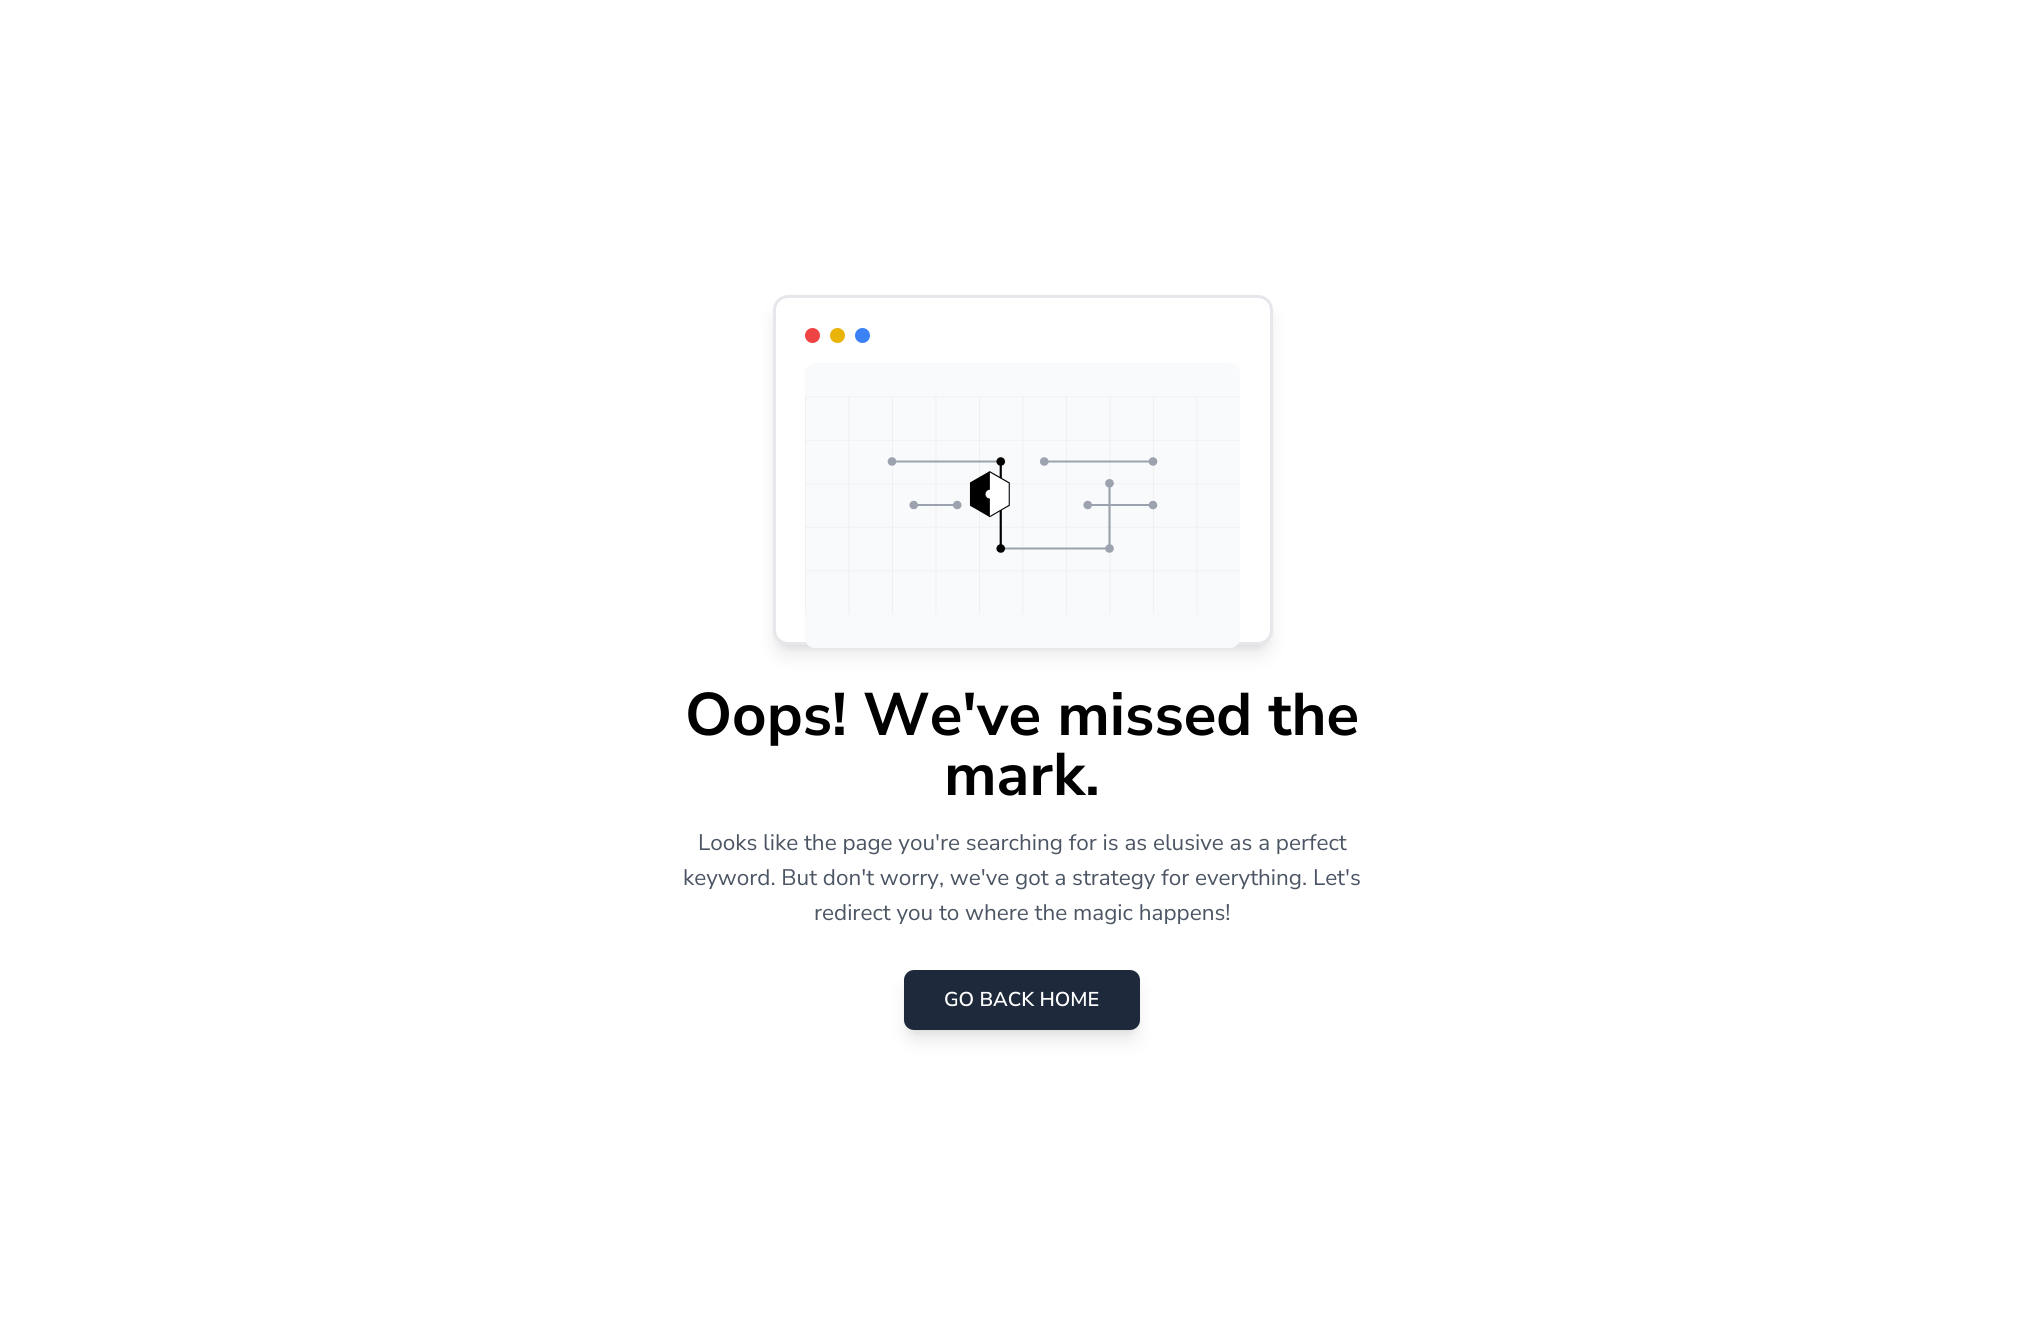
#include <cairo.h>
#include <math.h>
#include <stddef.h>

typedef struct { double x, y; const char *s; } line_t;

static void ink(cairo_t *ctx, unsigned color) {
    cairo_set_source_rgb(ctx, (color >> 16) / 255.0, (color >> 8 & 255) / 255.0, (color & 255) / 255.0);
}

static void round_path(cairo_t *ctx, double x, double y, double w, double h, double r) {
    cairo_new_sub_path(ctx);
    cairo_arc(ctx, x + w - r, y + h - r, r, 0, M_PI / 2);
    cairo_arc(ctx, x + r, y + h - r, r, M_PI / 2, M_PI);
    cairo_arc(ctx, x + r, y + r, r, M_PI, 1.5 * M_PI);
    cairo_arc(ctx, x + w - r, y + r, r, 1.5 * M_PI, 2 * M_PI);
    cairo_close_path(ctx);
}

static void blur_box(cairo_t *ctx, double x, double y, double w, double h, double r, double blur, double alpha) {
    cairo_push_group_with_content(ctx, CAIRO_CONTENT_ALPHA);
    cairo_set_operator(ctx, CAIRO_OPERATOR_SOURCE);
    for (int i = 15; i >= -15 && fmin(w, h) + blur * i / 3 > 0; i -= 2) {
        double e = blur * i / 6;
        cairo_set_source_rgba(ctx, 0, 0, 0, alpha * erfc((i - 1) / 8.5) / 2);
        round_path(ctx, x - e, y - e, w + 2 * e, h + 2 * e, fmax(0, fmin(r + e + blur * .6, fmin(w, h) / 2 + e)));
        cairo_fill(ctx);
    }
    cairo_pattern_t *soft = cairo_pop_group(ctx);
    cairo_mask(ctx, soft);
    cairo_pattern_destroy(soft);
}

static void paste(cairo_t *ctx, const char *path, double x, double y, double w, double h) {
    cairo_surface_t *image = cairo_image_surface_create_from_png(path);
    cairo_save(ctx);
    cairo_set_source_surface(ctx, image, x, y);
    cairo_rectangle(ctx, x, y, w, h);
    cairo_fill(ctx);
    cairo_restore(ctx);
    cairo_surface_destroy(image);
}

int main(void) {
    cairo_surface_t *surface = cairo_image_surface_create(CAIRO_FORMAT_RGB24, 2043, 1325);
    cairo_t *ctx = cairo_create(surface);
    cairo_font_options_t *options = cairo_font_options_create();
    cairo_font_options_set_hint_metrics(options, CAIRO_HINT_METRICS_OFF);
    cairo_font_options_set_hint_style(options, CAIRO_HINT_STYLE_NONE);
    cairo_set_font_options(ctx, options);
    cairo_set_miter_limit(ctx, 4);
    ink(ctx, 0xFFFFFF);
    cairo_paint(ctx);
    ink(ctx, 0x000000);
    blur_box(ctx, 778, 305, 490, 340, 10, 4, 0.1);
    blur_box(ctx, 776, 311, 493, 343, 11, 9.5, 0.1);
    ink(ctx, 0xFFFFFF);
    round_path(ctx, 774.5, 296.5, 497, 347, 13.5);
    cairo_fill_preserve(ctx);
    ink(ctx, 0xE5E7EB);
    cairo_set_line_width(ctx, 3);
    cairo_stroke(ctx);
    ink(ctx, 0xEF4444);
    cairo_arc(ctx, 812.5, 335.5, 7.5, 0, 2 * M_PI);
    cairo_fill(ctx);
    ink(ctx, 0xEAB308);
    cairo_arc(ctx, 837.5, 335.5, 7.5, 0, 2 * M_PI);
    cairo_fill(ctx);
    ink(ctx, 0x3B82F6);
    cairo_arc(ctx, 862.5, 335.5, 7.5, 0, 2 * M_PI);
    cairo_fill(ctx);
    ink(ctx, 0xF9FAFB);
    round_path(ctx, 805, 363, 435, 285, 10);
    cairo_fill(ctx);
    paste(ctx, "media/1.png", 805, 396, 435, 218);
    cairo_select_font_face(ctx, "Nunito Sans", CAIRO_FONT_SLANT_NORMAL, CAIRO_FONT_WEIGHT_BOLD);
    cairo_set_font_size(ctx, 60);
    ink(ctx, 0x000000);
    cairo_move_to(ctx, 685, 735);
    cairo_show_text(ctx, "Oops! We've missed the");
    cairo_move_to(ctx, 944, 795);
    cairo_show_text(ctx, "mark.");
    cairo_select_font_face(ctx, "Nunito Sans", CAIRO_FONT_SLANT_NORMAL, CAIRO_FONT_WEIGHT_NORMAL);
    cairo_set_font_size(ctx, 22.5);
    ink(ctx, 0x4B5563);
    {
        static const line_t items[] = {
            {698, 850, "Looks like the page you're searching for is as elusive as a perfect"},
            {683, 885, "keyword. But don't worry, we've got a strategy for everything. Let's"},
            {814, 920, "redirect you to where the magic happens!"},
        };
        for (size_t i = 0; i < sizeof items / sizeof *items; i++) {
            cairo_move_to(ctx, items[i].x, items[i].y);
            cairo_show_text(ctx, items[i].s);
        }
    }
    ink(ctx, 0x000000);
    blur_box(ctx, 909, 980, 226, 50, 5, 4, 0.1);
    blur_box(ctx, 908, 986, 228, 53, 6, 9.5, 0.1);
    ink(ctx, 0x1E293B);
    round_path(ctx, 904, 970, 236, 60, 10);
    cairo_fill(ctx);
    cairo_select_font_face(ctx, "Nunito Sans SemiBold", CAIRO_FONT_SLANT_NORMAL, CAIRO_FONT_WEIGHT_NORMAL);
    cairo_set_font_size(ctx, 20);
    ink(ctx, 0xFFFFFF);
    cairo_move_to(ctx, 944, 1006);
    cairo_show_text(ctx, "GO BACK HOME");
    cairo_surface_write_to_png(surface, "image.png");
    cairo_font_options_destroy(options);
    cairo_destroy(ctx);
    cairo_surface_destroy(surface);
    return 0;
}
